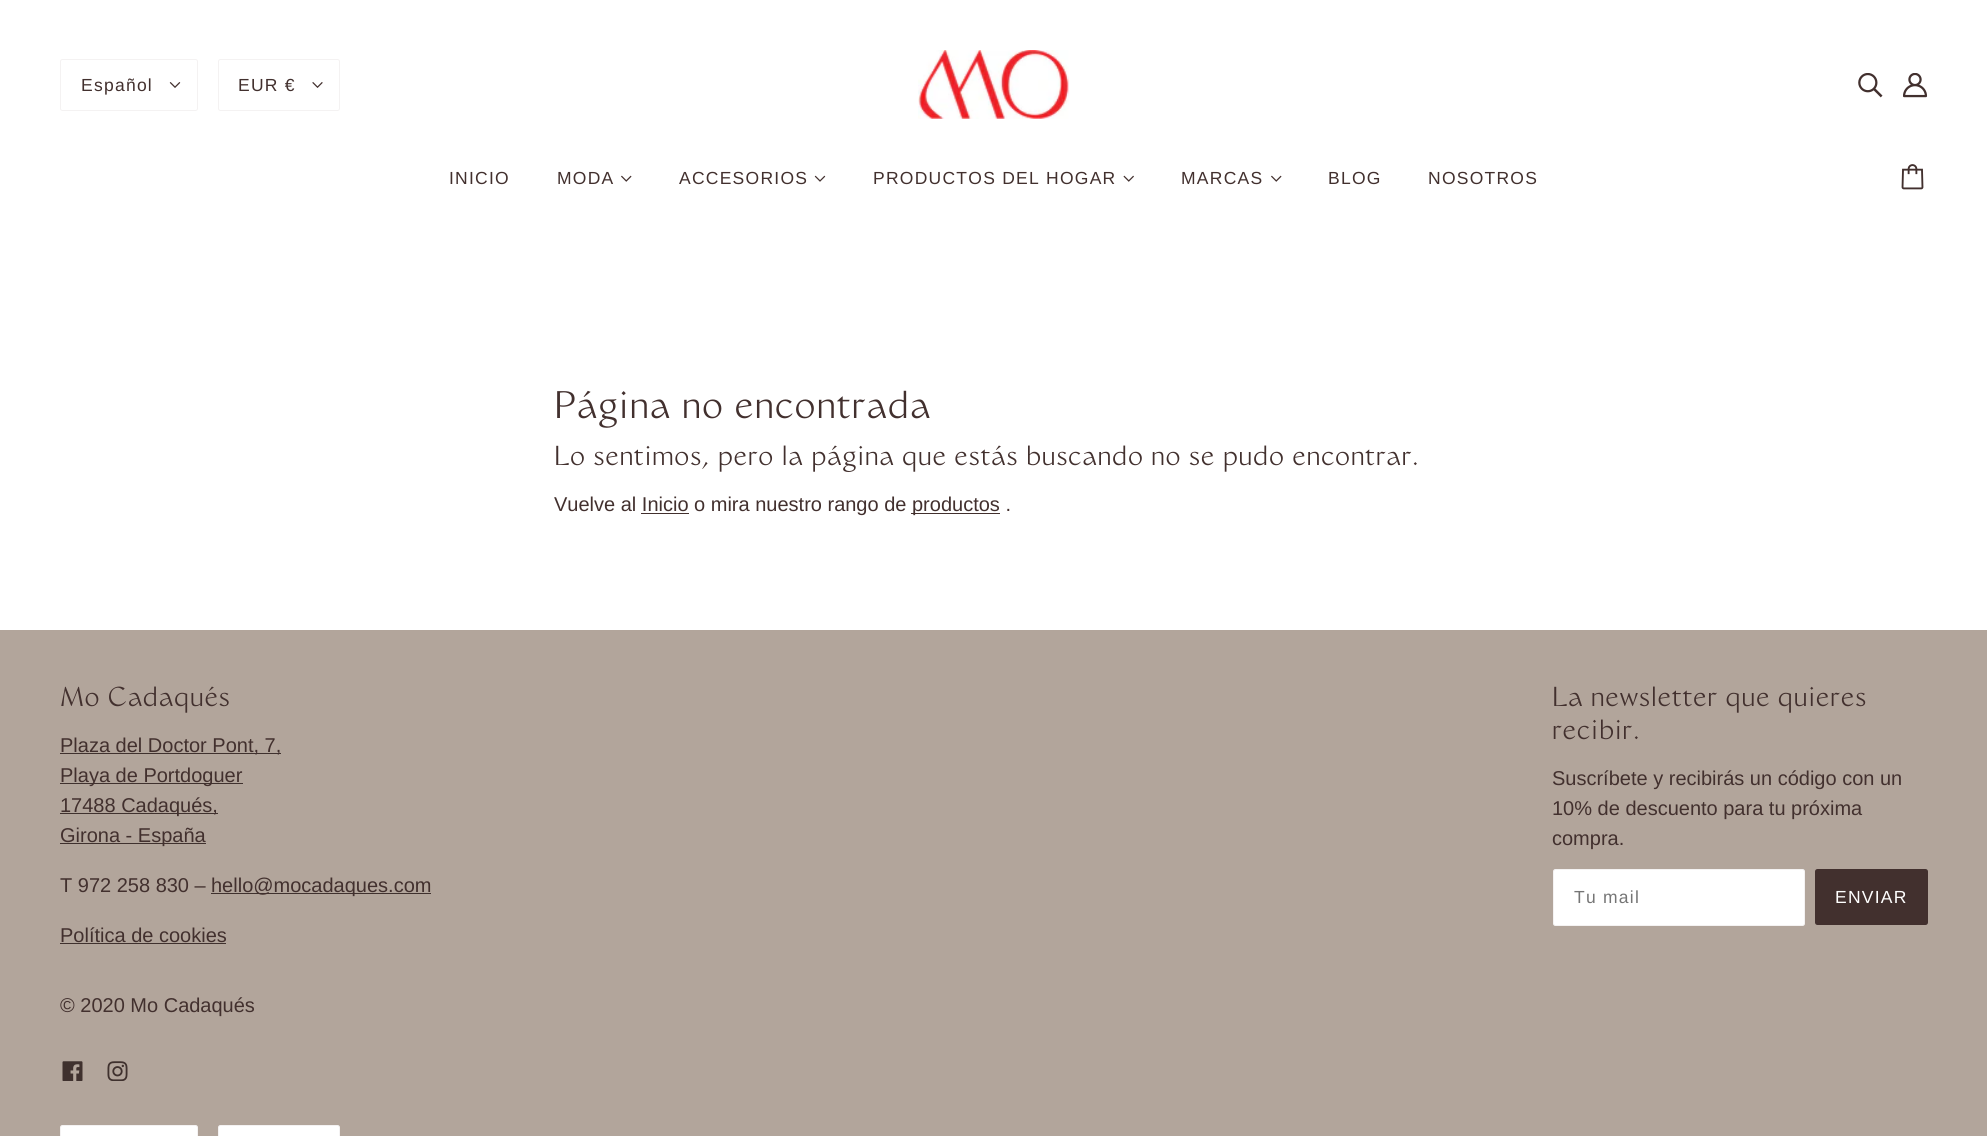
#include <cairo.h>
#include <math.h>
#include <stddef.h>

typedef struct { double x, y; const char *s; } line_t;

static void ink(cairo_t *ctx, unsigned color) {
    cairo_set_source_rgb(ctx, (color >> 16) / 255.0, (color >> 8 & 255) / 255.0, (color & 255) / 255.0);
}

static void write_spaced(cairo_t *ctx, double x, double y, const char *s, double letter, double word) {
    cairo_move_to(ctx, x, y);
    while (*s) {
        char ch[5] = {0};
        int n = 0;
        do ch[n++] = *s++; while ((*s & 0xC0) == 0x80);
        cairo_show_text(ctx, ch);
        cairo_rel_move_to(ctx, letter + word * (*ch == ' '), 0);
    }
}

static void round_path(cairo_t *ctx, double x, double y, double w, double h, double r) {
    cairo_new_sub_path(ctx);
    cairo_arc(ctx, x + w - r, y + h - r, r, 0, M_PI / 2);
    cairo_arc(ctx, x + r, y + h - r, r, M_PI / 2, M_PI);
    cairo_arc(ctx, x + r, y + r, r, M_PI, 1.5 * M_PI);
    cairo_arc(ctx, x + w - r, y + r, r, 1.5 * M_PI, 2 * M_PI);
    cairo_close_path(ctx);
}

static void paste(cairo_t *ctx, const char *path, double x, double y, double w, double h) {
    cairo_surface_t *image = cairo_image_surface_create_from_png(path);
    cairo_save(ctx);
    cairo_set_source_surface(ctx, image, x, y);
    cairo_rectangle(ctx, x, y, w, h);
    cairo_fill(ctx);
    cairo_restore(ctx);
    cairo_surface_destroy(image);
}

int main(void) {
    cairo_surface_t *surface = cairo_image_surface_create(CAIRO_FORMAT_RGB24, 1987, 1136);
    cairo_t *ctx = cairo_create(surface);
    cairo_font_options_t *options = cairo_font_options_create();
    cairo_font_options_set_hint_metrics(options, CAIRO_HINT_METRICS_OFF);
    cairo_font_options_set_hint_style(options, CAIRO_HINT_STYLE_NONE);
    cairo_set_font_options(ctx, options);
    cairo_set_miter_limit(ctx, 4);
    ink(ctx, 0xFFFFFF);
    cairo_paint(ctx);
    round_path(ctx, 60.5, 59.5, 137, 51, 2);
    ink(ctx, 0xF4F2F2);
    cairo_set_line_width(ctx, 1);
    cairo_stroke(ctx);
    cairo_select_font_face(ctx, "Liberation Sans", CAIRO_FONT_SLANT_NORMAL, CAIRO_FONT_WEIGHT_NORMAL);
    cairo_set_font_size(ctx, 17.5);
    ink(ctx, 0x42302E);
    write_spaced(ctx, 81, 91, "Español", 1.25, 0);
    paste(ctx, "media/1.png", 169, 82, 12, 6);
    round_path(ctx, 218.5, 59.5, 121, 51, 2);
    ink(ctx, 0xF4F2F2);
    cairo_stroke(ctx);
    ink(ctx, 0x42302E);
    write_spaced(ctx, 238, 91, "EUR €", 1.25, 0);
    paste(ctx, "media/2.png", 312, 82, 11, 6);
    paste(ctx, "media/3.png", 918, 50, 152, 69);
    paste(ctx, "media/4.png", 1858, 73, 25, 25);
    paste(ctx, "media/5.png", 1903, 73, 25, 25);
    write_spaced(ctx, 449, 184, "INICIO", 1.25, 0);
    write_spaced(ctx, 557, 184, "MODA", 1.25, 0);
    paste(ctx, "media/6.png", 621, 175, 11, 7);
    write_spaced(ctx, 679, 184, "ACCESORIOS", 1.25, 0);
    paste(ctx, "media/7.png", 814, 175, 12, 7);
    write_spaced(ctx, 873, 184, "PRODUCTOS DEL HOGAR", 1.25, 0);
    paste(ctx, "media/8.png", 1123, 175, 11, 7);
    write_spaced(ctx, 1181, 184, "MARCAS", 1.25, 0);
    paste(ctx, "media/6.png", 1271, 175, 11, 7);
    write_spaced(ctx, 1328, 184, "BLOG", 1.25, 0);
    write_spaced(ctx, 1428, 184, "NOSOTROS", 1.25, 0);
    paste(ctx, "media/9.png", 1901, 164, 23, 26);
    cairo_select_font_face(ctx, "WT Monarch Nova", CAIRO_FONT_SLANT_NORMAL, CAIRO_FONT_WEIGHT_NORMAL);
    cairo_set_font_size(ctx, 35);
    write_spaced(ctx, 554, 418, "Página no encontrada", 0.9, 0);
    cairo_set_font_size(ctx, 25);
    write_spaced(ctx, 554, 465, "Lo sentimos, pero la página que estás buscando no se pudo encontrar.", 0.62, 0);
    cairo_select_font_face(ctx, "Liberation Sans", CAIRO_FONT_SLANT_NORMAL, CAIRO_FONT_WEIGHT_NORMAL);
    cairo_set_font_size(ctx, 20);
    cairo_move_to(ctx, 554, 511);
    cairo_show_text(ctx, "Vuelve al Inicio o mira nuestro rango de");
    cairo_rectangle(ctx, 911, 513, 89, 1);
    cairo_fill(ctx);
    cairo_move_to(ctx, 912, 511);
    cairo_show_text(ctx, "productos .");
    cairo_rectangle(ctx, 641, 513, 48, 1);
    cairo_fill(ctx);
    ink(ctx, 0xB2A59B);
    cairo_rectangle(ctx, 0, 630, 1987, 506);
    cairo_fill(ctx);
    cairo_select_font_face(ctx, "WT Monarch Nova", CAIRO_FONT_SLANT_NORMAL, CAIRO_FONT_WEIGHT_NORMAL);
    cairo_set_font_size(ctx, 25);
    ink(ctx, 0x42302E);
    write_spaced(ctx, 60, 706, "Mo Cadaqués", 0.62, 0);
    ink(ctx, 0x3F312E);
    cairo_rectangle(ctx, 60, 753, 221, 1);
    cairo_fill(ctx);
    cairo_select_font_face(ctx, "Liberation Sans", CAIRO_FONT_SLANT_NORMAL, CAIRO_FONT_WEIGHT_NORMAL);
    cairo_set_font_size(ctx, 20);
    ink(ctx, 0x42302E);
    cairo_move_to(ctx, 60, 752);
    cairo_show_text(ctx, "Plaza del Doctor Pont, 7,");
    ink(ctx, 0x3F312E);
    cairo_rectangle(ctx, 60, 783, 183, 1);
    cairo_fill(ctx);
    ink(ctx, 0x42302E);
    cairo_move_to(ctx, 60, 782);
    cairo_show_text(ctx, "Playa de Portdoguer");
    ink(ctx, 0x3F312E);
    cairo_rectangle(ctx, 60, 813, 158, 1);
    cairo_fill(ctx);
    ink(ctx, 0x42302E);
    cairo_move_to(ctx, 60, 812);
    cairo_show_text(ctx, "17488 Cadaqués,");
    ink(ctx, 0x3F312E);
    cairo_rectangle(ctx, 60, 843, 146, 1);
    cairo_fill(ctx);
    ink(ctx, 0x42302E);
    cairo_move_to(ctx, 60, 842);
    cairo_show_text(ctx, "Girona - España");
    cairo_move_to(ctx, 60, 892);
    cairo_show_text(ctx, "T 972 258 830 –");
    ink(ctx, 0x3F312E);
    cairo_rectangle(ctx, 211, 893, 220, 1);
    cairo_fill(ctx);
    ink(ctx, 0x42302E);
    cairo_move_to(ctx, 211, 892);
    cairo_show_text(ctx, "hello@mocadaques.com");
    cairo_move_to(ctx, 60, 942);
    cairo_show_text(ctx, "Política de cookies");
    ink(ctx, 0x3F312E);
    cairo_rectangle(ctx, 60, 943, 166, 1);
    cairo_fill(ctx);
    ink(ctx, 0x42302E);
    cairo_move_to(ctx, 60, 1012);
    cairo_show_text(ctx, "© 2020 Mo Cadaqués");
    paste(ctx, "media/10.png", 62, 1061, 21, 20);
    paste(ctx, "media/11.png", 107, 1061, 21, 20);
    cairo_select_font_face(ctx, "WT Monarch Nova", CAIRO_FONT_SLANT_NORMAL, CAIRO_FONT_WEIGHT_NORMAL);
    cairo_set_font_size(ctx, 25);
    write_spaced(ctx, 1552, 706, "La newsletter que quieres", 0.62, 0);
    write_spaced(ctx, 1552, 739, "recibir.", 0.62, 0);
    cairo_select_font_face(ctx, "Liberation Sans", CAIRO_FONT_SLANT_NORMAL, CAIRO_FONT_WEIGHT_NORMAL);
    cairo_set_font_size(ctx, 20);
    {
        static const line_t items[] = {
            {1552, 785, "Suscríbete y recibirás un código con un"},
            {1552, 815, "10% de descuento para tu próxima"},
            {1552, 845, "compra."},
        };
        for (size_t i = 0; i < sizeof items / sizeof *items; i++) {
            cairo_move_to(ctx, items[i].x, items[i].y);
            cairo_show_text(ctx, items[i].s);
        }
    }
    ink(ctx, 0xFFFFFF);
    round_path(ctx, 1553.5, 869.5, 251, 56, 2);
    cairo_fill_preserve(ctx);
    ink(ctx, 0xF4F2F2);
    cairo_stroke(ctx);
    cairo_set_font_size(ctx, 17.5);
    ink(ctx, 0x757575);
    write_spaced(ctx, 1574, 903, "Tu mail", 1.25, 0);
    ink(ctx, 0x42302E);
    round_path(ctx, 1815, 869, 113, 56, 2.5);
    cairo_fill(ctx);
    ink(ctx, 0xFFFFFF);
    write_spaced(ctx, 1835, 903, "ENVIAR", 1.25, 0);
    round_path(ctx, 60.5, 1125.5, 137, 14, 2);
    cairo_fill_preserve(ctx);
    ink(ctx, 0xF4F2F2);
    cairo_stroke(ctx);
    ink(ctx, 0xFFFFFF);
    round_path(ctx, 218.5, 1125.5, 121, 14, 2);
    cairo_fill_preserve(ctx);
    ink(ctx, 0xF4F2F2);
    cairo_stroke(ctx);
    cairo_surface_write_to_png(surface, "image.png");
    cairo_font_options_destroy(options);
    cairo_destroy(ctx);
    cairo_surface_destroy(surface);
    return 0;
}
